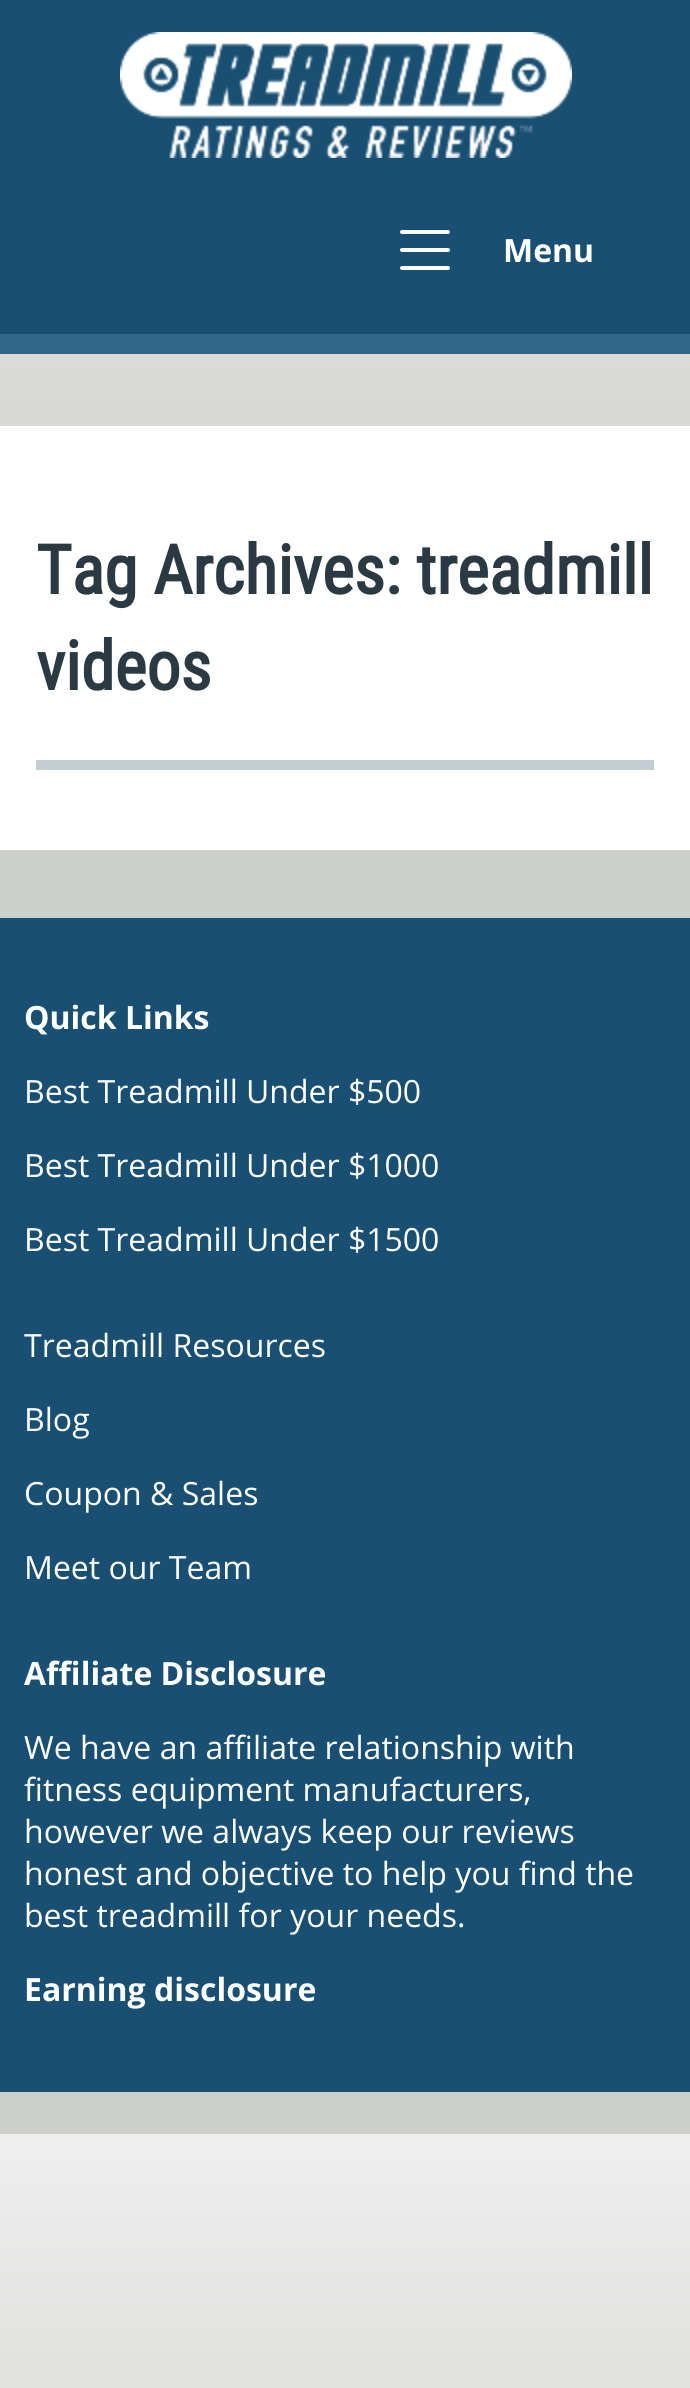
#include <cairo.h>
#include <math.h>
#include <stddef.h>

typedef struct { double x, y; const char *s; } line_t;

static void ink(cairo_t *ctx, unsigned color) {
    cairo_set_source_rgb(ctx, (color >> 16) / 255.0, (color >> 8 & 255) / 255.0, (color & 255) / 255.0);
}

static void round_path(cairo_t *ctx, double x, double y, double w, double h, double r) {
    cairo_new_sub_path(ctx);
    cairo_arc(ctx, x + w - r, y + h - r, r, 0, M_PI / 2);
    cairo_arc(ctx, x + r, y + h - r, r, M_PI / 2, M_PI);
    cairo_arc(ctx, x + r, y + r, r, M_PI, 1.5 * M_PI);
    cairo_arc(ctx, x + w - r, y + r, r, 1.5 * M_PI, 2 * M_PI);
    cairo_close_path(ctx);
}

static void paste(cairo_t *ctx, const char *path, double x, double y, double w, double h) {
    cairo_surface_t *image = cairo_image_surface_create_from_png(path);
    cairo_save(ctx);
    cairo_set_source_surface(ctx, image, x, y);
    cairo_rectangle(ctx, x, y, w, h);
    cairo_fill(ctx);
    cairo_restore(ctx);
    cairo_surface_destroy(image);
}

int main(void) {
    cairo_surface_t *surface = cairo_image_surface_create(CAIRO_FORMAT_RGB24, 690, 2388);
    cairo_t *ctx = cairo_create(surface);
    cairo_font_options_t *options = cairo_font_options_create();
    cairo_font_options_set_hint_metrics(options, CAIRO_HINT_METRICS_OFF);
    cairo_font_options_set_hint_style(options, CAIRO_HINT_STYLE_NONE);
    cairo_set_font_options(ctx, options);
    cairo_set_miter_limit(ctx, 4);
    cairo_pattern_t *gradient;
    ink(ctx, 0xFFFFFF);
    cairo_paint(ctx);
    gradient = cairo_pattern_create_linear(345, 0, 345, 2134);
    cairo_pattern_add_color_stop_rgba(gradient, 0, 0.937, 0.937, 0.937, 1);
    cairo_pattern_add_color_stop_rgba(gradient, 0.28, 0.804, 0.812, 0.792, 1);
    cairo_pattern_add_color_stop_rgba(gradient, 1, 0.804, 0.812, 0.792, 1);
    cairo_set_source(ctx, gradient);
    cairo_pattern_destroy(gradient);
    cairo_rectangle(ctx, 0, 354, 690, 1780);
    cairo_fill(ctx);
    gradient = cairo_pattern_create_linear(345, 2134, 345, 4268);
    cairo_pattern_add_color_stop_rgba(gradient, 0, 0.937, 0.937, 0.937, 1);
    cairo_pattern_add_color_stop_rgba(gradient, 0.28, 0.804, 0.812, 0.792, 1);
    cairo_pattern_add_color_stop_rgba(gradient, 1, 0.804, 0.812, 0.792, 1);
    cairo_set_source(ctx, gradient);
    cairo_pattern_destroy(gradient);
    cairo_rectangle(ctx, 0, 2134, 690, 254);
    cairo_fill(ctx);
    ink(ctx, 0x194F73);
    cairo_rectangle(ctx, 0, 0, 690, 334);
    cairo_fill(ctx);
    ink(ctx, 0x31658A);
    cairo_rectangle(ctx, 0, 334, 690, 20);
    cairo_fill(ctx);
    paste(ctx, "media/1.png", 120, 32, 452, 126);
    ink(ctx, 0xFFFFFF);
    round_path(ctx, 400, 248, 50, 4, 2);
    cairo_fill(ctx);
    round_path(ctx, 400, 230, 50, 4, 2);
    cairo_fill(ctx);
    round_path(ctx, 400, 266, 50, 4, 2);
    cairo_fill(ctx);
    cairo_select_font_face(ctx, "Open Sans", CAIRO_FONT_SLANT_NORMAL, CAIRO_FONT_WEIGHT_BOLD);
    cairo_set_font_size(ctx, 32);
    cairo_move_to(ctx, 503, 262);
    cairo_show_text(ctx, "Menu");
    cairo_rectangle(ctx, 0, 426, 690, 424);
    cairo_fill(ctx);
    cairo_select_font_face(ctx, "Roboto Condensed", CAIRO_FONT_SLANT_NORMAL, CAIRO_FONT_WEIGHT_BOLD);
    cairo_set_font_size(ctx, 68);
    ink(ctx, 0x2B3A42);
    cairo_move_to(ctx, 36, 594);
    cairo_show_text(ctx, "Tag Archives: treadmill");
    cairo_move_to(ctx, 36, 690);
    cairo_show_text(ctx, "videos");
    ink(ctx, 0xC3CED1);
    cairo_rectangle(ctx, 36, 760, 618, 10);
    cairo_fill(ctx);
    ink(ctx, 0x194F73);
    cairo_rectangle(ctx, 0, 918, 690, 1174);
    cairo_fill(ctx);
    cairo_select_font_face(ctx, "Open Sans", CAIRO_FONT_SLANT_NORMAL, CAIRO_FONT_WEIGHT_BOLD);
    cairo_set_font_size(ctx, 32);
    ink(ctx, 0xFFFFFF);
    cairo_move_to(ctx, 24, 1029);
    cairo_show_text(ctx, "Quick Links");
    cairo_select_font_face(ctx, "Open Sans", CAIRO_FONT_SLANT_NORMAL, CAIRO_FONT_WEIGHT_NORMAL);
    {
        static const line_t items[] = {
            {24, 1103, "Best Treadmill Under $500"},
            {24, 1177, "Best Treadmill Under $1000"},
            {24, 1251, "Best Treadmill Under $1500"},
            {24, 1357, "Treadmill Resources"},
            {24, 1431, "Blog"},
            {24, 1505, "Coupon & Sales"},
            {24, 1579, "Meet our Team"},
        };
        for (size_t i = 0; i < sizeof items / sizeof *items; i++) {
            cairo_move_to(ctx, items[i].x, items[i].y);
            cairo_show_text(ctx, items[i].s);
        }
    }
    cairo_select_font_face(ctx, "Open Sans", CAIRO_FONT_SLANT_NORMAL, CAIRO_FONT_WEIGHT_BOLD);
    cairo_move_to(ctx, 24, 1685);
    cairo_show_text(ctx, "Affiliate Disclosure");
    cairo_select_font_face(ctx, "Open Sans", CAIRO_FONT_SLANT_NORMAL, CAIRO_FONT_WEIGHT_NORMAL);
    {
        static const line_t items[] = {
            {24, 1759, "We have an affiliate relationship with"},
            {24, 1801, "fitness equipment manufacturers,"},
            {24, 1843, "however we always keep our reviews"},
            {24, 1885, "honest and objective to help you find the"},
            {24, 1927, "best treadmill for your needs."},
        };
        for (size_t i = 0; i < sizeof items / sizeof *items; i++) {
            cairo_move_to(ctx, items[i].x, items[i].y);
            cairo_show_text(ctx, items[i].s);
        }
    }
    cairo_select_font_face(ctx, "Open Sans", CAIRO_FONT_SLANT_NORMAL, CAIRO_FONT_WEIGHT_BOLD);
    cairo_move_to(ctx, 24, 2001);
    cairo_show_text(ctx, "Earning disclosure");
    cairo_surface_write_to_png(surface, "image.png");
    cairo_font_options_destroy(options);
    cairo_destroy(ctx);
    cairo_surface_destroy(surface);
    return 0;
}
